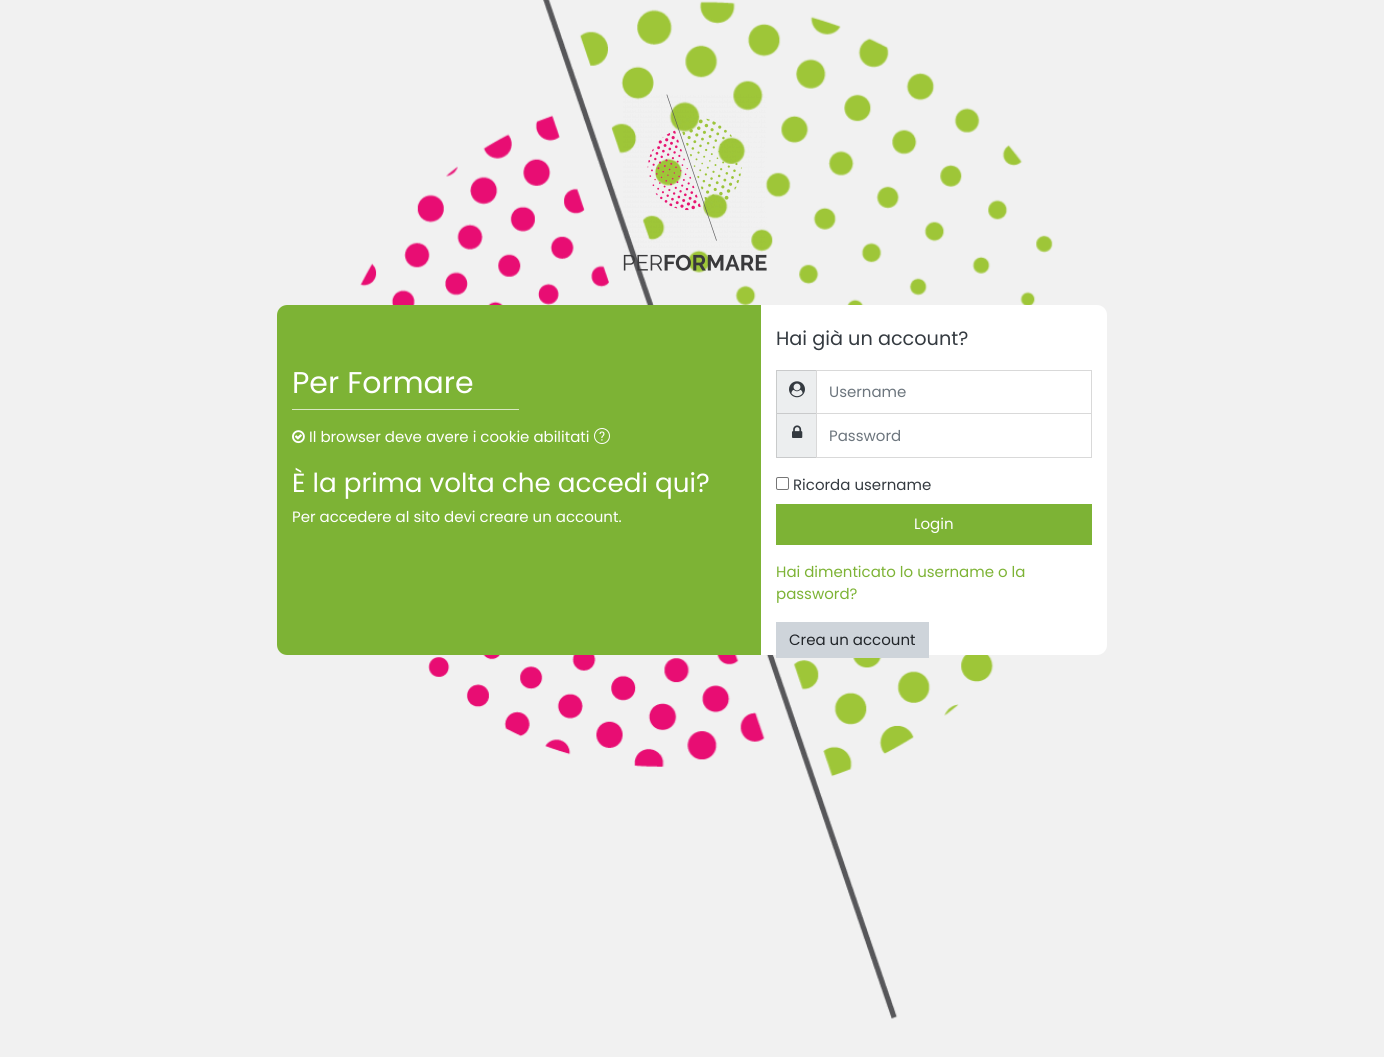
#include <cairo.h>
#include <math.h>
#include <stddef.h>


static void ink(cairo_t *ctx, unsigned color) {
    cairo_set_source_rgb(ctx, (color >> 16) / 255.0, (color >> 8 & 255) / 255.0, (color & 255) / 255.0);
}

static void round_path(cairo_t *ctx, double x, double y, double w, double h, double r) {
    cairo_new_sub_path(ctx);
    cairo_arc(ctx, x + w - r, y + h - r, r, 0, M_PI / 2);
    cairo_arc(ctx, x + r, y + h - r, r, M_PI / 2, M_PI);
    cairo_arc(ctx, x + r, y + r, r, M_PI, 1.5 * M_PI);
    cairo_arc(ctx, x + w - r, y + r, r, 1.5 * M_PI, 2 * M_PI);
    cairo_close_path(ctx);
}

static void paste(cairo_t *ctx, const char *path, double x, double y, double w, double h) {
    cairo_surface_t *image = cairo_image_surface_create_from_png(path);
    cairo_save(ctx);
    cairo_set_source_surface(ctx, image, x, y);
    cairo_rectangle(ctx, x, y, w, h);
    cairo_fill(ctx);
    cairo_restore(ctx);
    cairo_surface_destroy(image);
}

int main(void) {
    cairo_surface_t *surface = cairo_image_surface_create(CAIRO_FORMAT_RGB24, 1384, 1057);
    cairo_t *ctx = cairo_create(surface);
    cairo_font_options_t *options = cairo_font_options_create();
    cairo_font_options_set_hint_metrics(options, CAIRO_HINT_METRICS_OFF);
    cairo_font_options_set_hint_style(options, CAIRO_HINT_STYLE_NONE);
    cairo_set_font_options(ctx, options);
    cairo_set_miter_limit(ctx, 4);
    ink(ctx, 0xF1F1F1);
    cairo_paint(ctx);
    paste(ctx, "media/1.png", 360, 0, 693, 1019);
    paste(ctx, "media/2.png", 623, 94, 144, 177);
    ink(ctx, 0xFFFFFF);
    round_path(ctx, 277, 305, 830, 350, 10);
    cairo_fill(ctx);
    ink(ctx, 0x7DB335);
    cairo_new_path(ctx);
    cairo_move_to(ctx, 287, 305);
    cairo_line_to(ctx, 761, 305);
    cairo_line_to(ctx, 761, 655);
    cairo_line_to(ctx, 287, 655);
    cairo_curve_to(ctx, 281.5, 655, 277, 650.5, 277, 645);
    cairo_line_to(ctx, 277, 315);
    cairo_curve_to(ctx, 277, 309.5, 281.5, 305, 287, 305);
    cairo_close_path(ctx);
    cairo_fill(ctx);
    cairo_select_font_face(ctx, "Poppins", CAIRO_FONT_SLANT_NORMAL, CAIRO_FONT_WEIGHT_NORMAL);
    cairo_set_font_size(ctx, 30);
    ink(ctx, 0xFFFFFF);
    cairo_move_to(ctx, 292, 393);
    cairo_show_text(ctx, "Per Formare");
    ink(ctx, 0xD8E8C2);
    cairo_rectangle(ctx, 292, 409, 227, 1);
    cairo_fill(ctx);
    paste(ctx, "media/3.png", 292, 430, 13, 14);
    cairo_set_font_size(ctx, 15);
    ink(ctx, 0xFFFFFF);
    cairo_move_to(ctx, 309, 442);
    cairo_show_text(ctx, "Il browser deve avere i cookie abilitati");
    paste(ctx, "media/4.png", 594, 428, 16, 16);
    cairo_set_font_size(ctx, 26.25);
    cairo_move_to(ctx, 292, 492);
    cairo_show_text(ctx, "È la prima volta che accedi qui?");
    cairo_set_font_size(ctx, 15);
    cairo_move_to(ctx, 292, 522);
    cairo_show_text(ctx, "Per accedere al sito devi creare un account.");
    cairo_set_font_size(ctx, 19.25);
    ink(ctx, 0x343A40);
    cairo_move_to(ctx, 776, 345);
    cairo_show_text(ctx, "Hai già un account?");
    ink(ctx, 0xECEEEF);
    cairo_rectangle(ctx, 776, 370, 40, 88);
    cairo_fill(ctx);
    ink(ctx, 0xC9CACB);
    cairo_new_path(ctx);
    cairo_move_to(ctx, 776, 370);
    cairo_line_to(ctx, 816, 370);
    cairo_line_to(ctx, 816, 371);
    cairo_line_to(ctx, 777, 371);
    cairo_close_path(ctx);
    cairo_move_to(ctx, 816, 414);
    cairo_line_to(ctx, 776, 414);
    cairo_line_to(ctx, 777, 413);
    cairo_line_to(ctx, 816, 413);
    cairo_close_path(ctx);
    cairo_fill(ctx);
    cairo_set_source_rgba(ctx, 0, 0, 0, 0.15);
    cairo_new_path(ctx);
    cairo_move_to(ctx, 776, 414);
    cairo_line_to(ctx, 776, 370);
    cairo_line_to(ctx, 777, 371);
    cairo_line_to(ctx, 777, 413);
    cairo_close_path(ctx);
    cairo_fill(ctx);
    paste(ctx, "media/5.png", 789, 381, 16, 17);
    cairo_rectangle(ctx, 816.5, 370.5, 275, 43);
    ink(ctx, 0xD9D9D9);
    cairo_set_line_width(ctx, 1);
    cairo_stroke(ctx);
    cairo_set_font_size(ctx, 15);
    ink(ctx, 0x6C757D);
    cairo_move_to(ctx, 829, 397);
    cairo_show_text(ctx, "Username");
    ink(ctx, 0xC9CACB);
    cairo_new_path(ctx);
    cairo_move_to(ctx, 816, 458);
    cairo_line_to(ctx, 776, 458);
    cairo_line_to(ctx, 777, 457);
    cairo_line_to(ctx, 816, 457);
    cairo_close_path(ctx);
    cairo_fill(ctx);
    cairo_set_source_rgba(ctx, 0, 0, 0, 0.15);
    cairo_new_path(ctx);
    cairo_move_to(ctx, 776, 458);
    cairo_line_to(ctx, 776, 414);
    cairo_line_to(ctx, 777, 414);
    cairo_line_to(ctx, 777, 457);
    cairo_close_path(ctx);
    cairo_fill(ctx);
    paste(ctx, "media/6.png", 792, 425, 11, 13);
    ink(ctx, 0xD9D9D9);
    cairo_new_path(ctx);
    cairo_move_to(ctx, 1092, 414);
    cairo_line_to(ctx, 1092, 458);
    cairo_line_to(ctx, 1091, 457);
    cairo_line_to(ctx, 1091, 414);
    cairo_close_path(ctx);
    cairo_fill(ctx);
    cairo_set_source_rgba(ctx, 0, 0, 0, 0.15);
    cairo_new_path(ctx);
    cairo_move_to(ctx, 1092, 458);
    cairo_line_to(ctx, 816, 458);
    cairo_line_to(ctx, 817, 457);
    cairo_line_to(ctx, 1091, 457);
    cairo_close_path(ctx);
    cairo_fill(ctx);
    cairo_new_path(ctx);
    cairo_move_to(ctx, 816, 458);
    cairo_line_to(ctx, 816, 414);
    cairo_line_to(ctx, 817, 414);
    cairo_line_to(ctx, 817, 457);
    cairo_close_path(ctx);
    cairo_fill(ctx);
    ink(ctx, 0x6C757D);
    cairo_move_to(ctx, 829, 441);
    cairo_show_text(ctx, "Password");
    round_path(ctx, 776.5, 477.5, 12, 12, 1.5);
    ink(ctx, 0x767676);
    cairo_stroke(ctx);
    ink(ctx, 0x343A40);
    cairo_move_to(ctx, 793, 490);
    cairo_show_text(ctx, "Ricorda username");
    ink(ctx, 0x7DB335);
    cairo_rectangle(ctx, 776, 504, 316, 41);
    cairo_fill(ctx);
    ink(ctx, 0xFFFFFF);
    cairo_move_to(ctx, 914, 529);
    cairo_show_text(ctx, "Login");
    ink(ctx, 0x7DB335);
    cairo_move_to(ctx, 776, 577);
    cairo_show_text(ctx, "Hai dimenticato lo username o la");
    cairo_move_to(ctx, 776, 599);
    cairo_show_text(ctx, "password?");
    ink(ctx, 0xCED4DA);
    cairo_rectangle(ctx, 776, 622, 153, 36);
    cairo_fill(ctx);
    ink(ctx, 0x212529);
    cairo_move_to(ctx, 789, 645);
    cairo_show_text(ctx, "Crea un account");
    cairo_surface_write_to_png(surface, "image.png");
    cairo_font_options_destroy(options);
    cairo_destroy(ctx);
    cairo_surface_destroy(surface);
    return 0;
}
